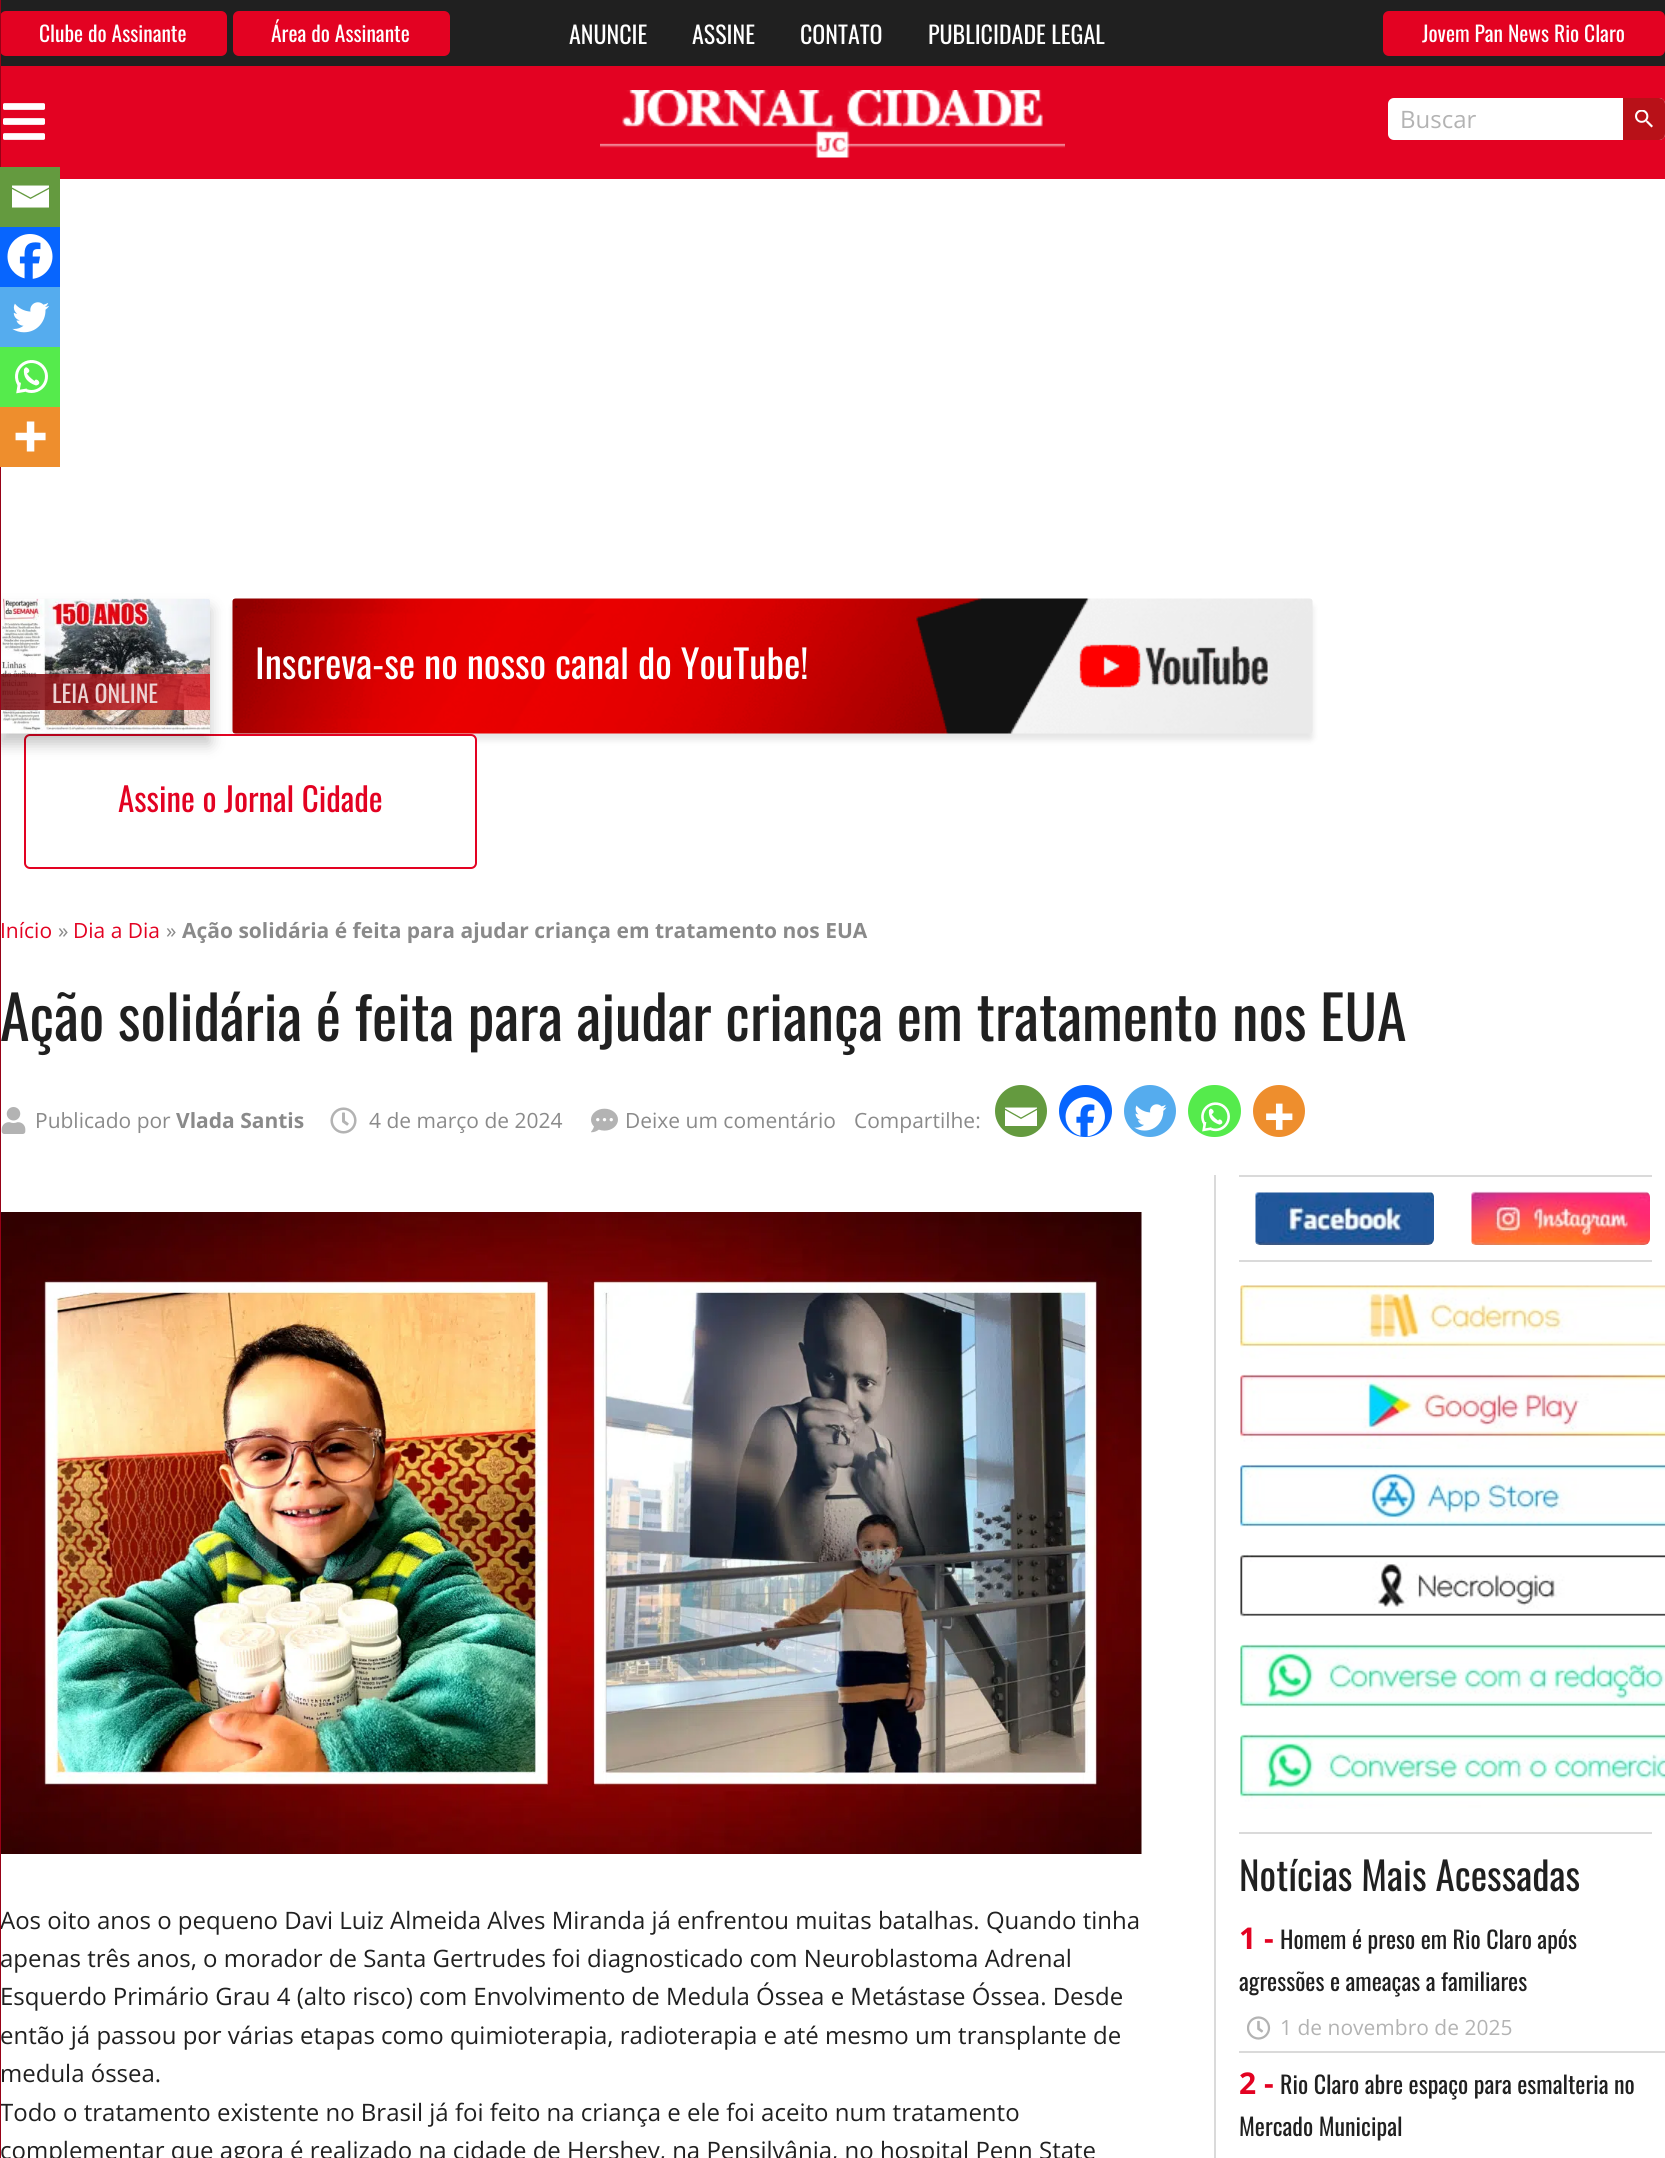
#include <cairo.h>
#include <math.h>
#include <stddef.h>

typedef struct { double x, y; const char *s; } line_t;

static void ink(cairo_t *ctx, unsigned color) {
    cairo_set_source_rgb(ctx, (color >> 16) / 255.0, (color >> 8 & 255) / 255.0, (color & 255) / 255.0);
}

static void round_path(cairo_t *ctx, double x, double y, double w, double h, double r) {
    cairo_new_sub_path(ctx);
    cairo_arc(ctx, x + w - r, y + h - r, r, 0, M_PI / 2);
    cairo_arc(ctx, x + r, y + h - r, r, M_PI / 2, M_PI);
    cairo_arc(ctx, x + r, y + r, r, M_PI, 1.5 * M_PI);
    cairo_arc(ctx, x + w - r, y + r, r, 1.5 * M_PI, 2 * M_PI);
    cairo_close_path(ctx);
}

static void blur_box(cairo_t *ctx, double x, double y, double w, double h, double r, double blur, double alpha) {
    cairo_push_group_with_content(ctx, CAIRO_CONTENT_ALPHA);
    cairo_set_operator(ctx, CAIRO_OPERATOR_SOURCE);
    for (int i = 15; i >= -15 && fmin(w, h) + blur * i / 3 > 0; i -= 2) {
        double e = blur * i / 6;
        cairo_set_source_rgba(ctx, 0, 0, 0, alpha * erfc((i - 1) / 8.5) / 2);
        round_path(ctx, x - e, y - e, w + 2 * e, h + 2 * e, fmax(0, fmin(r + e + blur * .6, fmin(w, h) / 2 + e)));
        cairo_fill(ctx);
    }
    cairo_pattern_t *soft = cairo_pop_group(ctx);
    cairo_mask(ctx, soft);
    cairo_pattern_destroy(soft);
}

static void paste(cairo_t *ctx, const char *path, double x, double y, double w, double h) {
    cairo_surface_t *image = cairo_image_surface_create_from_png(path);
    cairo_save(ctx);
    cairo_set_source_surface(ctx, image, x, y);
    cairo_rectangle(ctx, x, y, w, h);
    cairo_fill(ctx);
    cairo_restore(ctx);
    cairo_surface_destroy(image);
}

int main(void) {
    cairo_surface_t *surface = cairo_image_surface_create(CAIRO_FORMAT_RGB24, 1665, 2158);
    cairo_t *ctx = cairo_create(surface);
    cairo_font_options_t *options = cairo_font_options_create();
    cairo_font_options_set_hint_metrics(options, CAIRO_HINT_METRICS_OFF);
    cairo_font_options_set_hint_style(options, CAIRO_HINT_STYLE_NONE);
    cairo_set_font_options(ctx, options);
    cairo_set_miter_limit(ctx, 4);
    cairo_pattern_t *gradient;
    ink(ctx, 0xFFFFFF);
    cairo_paint(ctx);
    ink(ctx, 0x202020);
    cairo_rectangle(ctx, 1, 0, 1664, 66);
    cairo_fill(ctx);
    ink(ctx, 0xE30222);
    round_path(ctx, 0, 11, 227, 45, 6);
    cairo_fill(ctx);
    cairo_select_font_face(ctx, "Oswald", CAIRO_FONT_SLANT_NORMAL, CAIRO_FONT_WEIGHT_NORMAL);
    cairo_set_font_size(ctx, 21.5);
    ink(ctx, 0xFFFFFF);
    cairo_move_to(ctx, 39, 42);
    cairo_show_text(ctx, "Clube do Assinante");
    ink(ctx, 0xE30222);
    round_path(ctx, 233, 11, 217, 45, 6);
    cairo_fill(ctx);
    ink(ctx, 0xFFFFFF);
    cairo_move_to(ctx, 271, 42);
    cairo_show_text(ctx, "Área do Assinante");
    cairo_set_font_size(ctx, 24);
    {
        static const line_t items[] = {
            {569, 44, "ANUNCIE"},
            {692, 44, "ASSINE"},
            {800, 44, "CONTATO"},
            {928, 44, "PUBLICIDADE LEGAL"},
        };
        for (size_t i = 0; i < sizeof items / sizeof *items; i++) {
            cairo_move_to(ctx, items[i].x, items[i].y);
            cairo_show_text(ctx, items[i].s);
        }
    }
    ink(ctx, 0xE30222);
    round_path(ctx, 1383, 11, 282, 45, 6);
    cairo_fill(ctx);
    cairo_set_font_size(ctx, 21.5);
    ink(ctx, 0xFFFFFF);
    cairo_move_to(ctx, 1422, 42);
    cairo_show_text(ctx, "Jovem Pan News Rio Claro");
    ink(ctx, 0xE30222);
    cairo_rectangle(ctx, 1, 66, 1664, 113);
    cairo_fill(ctx);
    ink(ctx, 0x000000);
    blur_box(ctx, 233, 605, 1080, 135, 3, 3, 0.1);
    paste(ctx, "media/4.png", 232, 598, 1081, 136);
    ink(ctx, 0xFFFFFF);
    round_path(ctx, 25, 735, 451, 133, 5);
    cairo_fill_preserve(ctx);
    ink(ctx, 0xE30222);
    cairo_stroke(ctx);
    ink(ctx, 0x000000);
    blur_box(ctx, 0, 609, 210, 135, 0, 7.5, 0.23);
    cairo_select_font_face(ctx, "Open Sans", CAIRO_FONT_SLANT_NORMAL, CAIRO_FONT_WEIGHT_NORMAL);
    cairo_set_font_size(ctx, 24);
    ink(ctx, 0x202020);
    cairo_move_to(ctx, 0, 1929);
    cairo_show_text(ctx, "Aos oito anos o pequeno Davi Luiz Almeida Alves Miranda já enfrentou muitas batalhas. Quando tinha");
    cairo_move_to(ctx, 0, 2121);
    cairo_show_text(ctx, "Todo o tratamento existente no Brasil já foi feito na criança e ele foi aceito num tratamento");
    ink(ctx, 0x970117);
    cairo_rectangle(ctx, 0, 0, 1, 2158);
    cairo_fill(ctx);
    paste(ctx, "media/1.png", 3, 103, 42, 37);
    paste(ctx, "media/2.png", 600, 90, 465, 68);
    ink(ctx, 0xFFFFFF);
    round_path(ctx, 1388, 98, 277, 42, 6);
    cairo_fill(ctx);
    ink(ctx, 0xB3B3B3);
    cairo_move_to(ctx, 1400, 128);
    cairo_show_text(ctx, "Buscar");
    ink(ctx, 0xB81118);
    cairo_new_path(ctx);
    cairo_move_to(ctx, 1623, 98);
    cairo_line_to(ctx, 1659, 98);
    cairo_curve_to(ctx, 1662.5, 98, 1665, 100.5, 1665, 104);
    cairo_line_to(ctx, 1665, 134);
    cairo_curve_to(ctx, 1665, 137.5, 1662.5, 140, 1659, 140);
    cairo_line_to(ctx, 1623, 140);
    cairo_close_path(ctx);
    cairo_fill(ctx);
    paste(ctx, "media/3.png", 1635, 110, 18, 18);
    cairo_select_font_face(ctx, "Oswald", CAIRO_FONT_SLANT_NORMAL, CAIRO_FONT_WEIGHT_NORMAL);
    cairo_set_font_size(ctx, 39);
    ink(ctx, 0xFFFFFF);
    cairo_move_to(ctx, 255, 679);
    cairo_show_text(ctx, "Inscreva-se no nosso canal do YouTube!");
    paste(ctx, "media/5.png", 1, 598, 209, 136);
    cairo_set_source_rgba(ctx, 0.933, 0.11, 0.145, 0.8);
    cairo_rectangle(ctx, 1, 674, 209, 36);
    cairo_fill(ctx);
    gradient = cairo_pattern_create_linear(-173, 631, 235, 720);
    cairo_pattern_add_color_stop_rgba(gradient, 0, 0, 0, 0, 0.8);
    cairo_pattern_add_color_stop_rgba(gradient, 1, 0, 0, 0, 0);
    cairo_set_source(ctx, gradient);
    cairo_pattern_destroy(gradient);
    cairo_rectangle(ctx, 1, 674, 209, 36);
    cairo_fill(ctx);
    cairo_set_font_size(ctx, 24);
    ink(ctx, 0xEDD4D4);
    cairo_move_to(ctx, 52, 703);
    cairo_show_text(ctx, "LEIA ONLINE");
    cairo_set_font_size(ctx, 33);
    ink(ctx, 0xE30222);
    cairo_move_to(ctx, 118, 812);
    cairo_show_text(ctx, "Assine o Jornal Cidade");
    cairo_select_font_face(ctx, "Open Sans", CAIRO_FONT_SLANT_NORMAL, CAIRO_FONT_WEIGHT_NORMAL);
    cairo_set_font_size(ctx, 21);
    cairo_move_to(ctx, 0, 938);
    cairo_show_text(ctx, "Início");
    ink(ctx, 0x8A8A8A);
    cairo_move_to(ctx, 58, 938);
    cairo_show_text(ctx, "»");
    ink(ctx, 0xE30222);
    cairo_move_to(ctx, 73, 938);
    cairo_show_text(ctx, "Dia a Dia");
    ink(ctx, 0x8A8A8A);
    cairo_move_to(ctx, 166, 938);
    cairo_show_text(ctx, "»");
    cairo_select_font_face(ctx, "Open Sans", CAIRO_FONT_SLANT_NORMAL, CAIRO_FONT_WEIGHT_BOLD);
    cairo_move_to(ctx, 182, 938);
    cairo_show_text(ctx, "Ação solidária é feita para ajudar criança em tratamento nos EUA");
    cairo_select_font_face(ctx, "Oswald", CAIRO_FONT_SLANT_NORMAL, CAIRO_FONT_WEIGHT_NORMAL);
    cairo_set_font_size(ctx, 60);
    ink(ctx, 0x202020);
    cairo_move_to(ctx, 0, 1041);
    cairo_show_text(ctx, "Ação solidária é feita para ajudar criança em tratamento nos EUA");
    paste(ctx, "media/6.png", 1, 1107, 25, 27);
    cairo_select_font_face(ctx, "Open Sans", CAIRO_FONT_SLANT_NORMAL, CAIRO_FONT_WEIGHT_NORMAL);
    cairo_set_font_size(ctx, 21);
    ink(ctx, 0x8A8A8A);
    cairo_move_to(ctx, 35, 1128);
    cairo_show_text(ctx, "Publicado por");
    cairo_select_font_face(ctx, "Open Sans", CAIRO_FONT_SLANT_NORMAL, CAIRO_FONT_WEIGHT_BOLD);
    cairo_move_to(ctx, 176, 1128);
    cairo_show_text(ctx, "Vlada Santis");
    paste(ctx, "media/7.png", 330, 1107, 27, 27);
    cairo_select_font_face(ctx, "Open Sans", CAIRO_FONT_SLANT_NORMAL, CAIRO_FONT_WEIGHT_NORMAL);
    cairo_move_to(ctx, 369, 1128);
    cairo_show_text(ctx, "4 de março de 2024");
    paste(ctx, "media/8.png", 591, 1108, 27, 25);
    cairo_move_to(ctx, 625, 1128);
    cairo_show_text(ctx, "Deixe um comentário");
    cairo_move_to(ctx, 854, 1128);
    cairo_show_text(ctx, "Compartilhe:");
    ink(ctx, 0x649A3F);
    cairo_new_path(ctx);
    cairo_arc(ctx, 1021, 1111, 26, 0, 2 * M_PI);
    cairo_fill(ctx);
    ink(ctx, 0xFFFFFF);
    cairo_new_path(ctx);
    cairo_move_to(ctx, 1003.5, 1107.5);
    cairo_line_to(ctx, 1037, 1107.5);
    cairo_line_to(ctx, 1037, 1108.5);
    cairo_line_to(ctx, 1021, 1117.5);
    cairo_line_to(ctx, 1005, 1108.5);
    cairo_line_to(ctx, 1005, 1107.5);
    cairo_move_to(ctx, 1005, 1110);
    cairo_line_to(ctx, 1021, 1119);
    cairo_line_to(ctx, 1037, 1110);
    cairo_line_to(ctx, 1037, 1126);
    cairo_line_to(ctx, 1005, 1126);
    cairo_line_to(ctx, 1005, 1110);
    cairo_fill(ctx);
    ink(ctx, 0x0765FE);
    round_path(ctx, 1059, 1085, 53, 52, 26);
    cairo_fill(ctx);
    paste(ctx, "media/9.png", 1065, 1097, 40, 40);
    ink(ctx, 0x55ACEE);
    cairo_arc(ctx, 1150, 1111, 26, 0, 2 * M_PI);
    cairo_fill(ctx);
    paste(ctx, "media/10.png", 1134, 1104, 33, 27);
    ink(ctx, 0x55EB4C);
    round_path(ctx, 1188, 1085, 53, 52, 26);
    cairo_fill(ctx);
    paste(ctx, "media/11.png", 1201, 1102, 29, 30);
    ink(ctx, 0xEE8E2D);
    cairo_arc(ctx, 1279, 1111, 26, 0, 2 * M_PI);
    cairo_fill(ctx);
    paste(ctx, "media/12.png", 1266, 1103, 27, 27);
    ink(ctx, 0x649A3F);
    cairo_rectangle(ctx, 0, 167, 60, 60);
    cairo_fill(ctx);
    ink(ctx, 0xFFFFFF);
    cairo_new_path(ctx);
    cairo_move_to(ctx, 10.5, 185.5);
    cairo_line_to(ctx, 49, 185.5);
    cairo_line_to(ctx, 49, 187.5);
    cairo_line_to(ctx, 30.5, 197.5);
    cairo_line_to(ctx, 12, 187.5);
    cairo_line_to(ctx, 12, 185.5);
    cairo_move_to(ctx, 12, 189);
    cairo_line_to(ctx, 30.5, 199);
    cairo_line_to(ctx, 49, 189);
    cairo_line_to(ctx, 49, 207.5);
    cairo_line_to(ctx, 12, 207.5);
    cairo_line_to(ctx, 12, 189);
    cairo_fill(ctx);
    ink(ctx, 0x0765FE);
    cairo_rectangle(ctx, 0, 227, 60, 60);
    cairo_fill(ctx);
    paste(ctx, "media/13.png", 7, 234, 46, 45);
    ink(ctx, 0x55ACEE);
    cairo_rectangle(ctx, 0, 287, 60, 60);
    cairo_fill(ctx);
    paste(ctx, "media/14.png", 12, 302, 37, 31);
    ink(ctx, 0x55EB4C);
    cairo_rectangle(ctx, 0, 347, 60, 60);
    cairo_fill(ctx);
    paste(ctx, "media/15.png", 15, 360, 33, 34);
    ink(ctx, 0xEE8E2D);
    cairo_rectangle(ctx, 0, 407, 60, 60);
    cairo_fill(ctx);
    paste(ctx, "media/16.png", 15, 421, 31, 31);
    paste(ctx, "media/17.png", 1, 1212, 1141, 642);
    cairo_set_font_size(ctx, 24);
    ink(ctx, 0x202020);
    {
        static const line_t items[] = {
            {0, 1967, "apenas três anos, o morador de Santa Gertrudes foi diagnosticado com Neuroblastoma Adrenal"},
            {0, 2005, "Esquerdo Primário Grau 4 (alto risco) com Envolvimento de Medula Óssea e Metástase Óssea. Desde"},
            {0, 2044, "então já passou por várias etapas como quimioterapia, radioterapia e até mesmo um transplante de"},
            {0, 2082, "medula óssea."},
            {0, 2159, "complementar que agora é realizado na cidade de Hershey, na Pensilvânia, no hospital Penn State"},
        };
        for (size_t i = 0; i < sizeof items / sizeof *items; i++) {
            cairo_move_to(ctx, items[i].x, items[i].y);
            cairo_show_text(ctx, items[i].s);
        }
    }
    ink(ctx, 0xDADADA);
    cairo_rectangle(ctx, 1214, 1175, 2, 983);
    cairo_fill(ctx);
    cairo_rectangle(ctx, 1239, 1175, 413, 2);
    cairo_fill(ctx);
    paste(ctx, "media/18.png", 1255, 1192, 179, 53);
    paste(ctx, "media/19.png", 1471, 1191, 179, 54);
    cairo_rectangle(ctx, 1239, 1260, 413, 2);
    cairo_fill(ctx);
    paste(ctx, "media/20.png", 1240, 1285, 425, 74);
    paste(ctx, "media/21.png", 1240, 1374, 425, 75);
    paste(ctx, "media/22.png", 1240, 1464, 425, 63);
    paste(ctx, "media/23.png", 1240, 1554, 425, 63);
    paste(ctx, "media/24.png", 1240, 1644, 425, 64);
    paste(ctx, "media/25.png", 1240, 1734, 425, 75);
    cairo_rectangle(ctx, 1239, 1832, 413, 2);
    cairo_fill(ctx);
    cairo_select_font_face(ctx, "Oswald", CAIRO_FONT_SLANT_NORMAL, CAIRO_FONT_WEIGHT_NORMAL);
    cairo_set_font_size(ctx, 39);
    ink(ctx, 0x202020);
    cairo_move_to(ctx, 1239, 1891);
    cairo_show_text(ctx, "Notícias Mais Acessadas");
    ink(ctx, 0xDADADA);
    cairo_rectangle(ctx, 1239, 2051, 426, 2);
    cairo_fill(ctx);
    cairo_select_font_face(ctx, "Open Sans", CAIRO_FONT_SLANT_NORMAL, CAIRO_FONT_WEIGHT_BOLD);
    cairo_set_font_size(ctx, 30);
    ink(ctx, 0xE30222);
    cairo_move_to(ctx, 1239, 1949);
    cairo_show_text(ctx, "1 -");
    cairo_select_font_face(ctx, "Oswald", CAIRO_FONT_SLANT_NORMAL, CAIRO_FONT_WEIGHT_NORMAL);
    cairo_set_font_size(ctx, 24);
    ink(ctx, 0x202020);
    cairo_move_to(ctx, 1280, 1949);
    cairo_show_text(ctx, "Homem é preso em Rio Claro após");
    cairo_move_to(ctx, 1239, 1991);
    cairo_show_text(ctx, "agressões e ameaças a familiares");
    paste(ctx, "media/26.png", 1247, 2016, 24, 24);
    cairo_select_font_face(ctx, "Open Sans", CAIRO_FONT_SLANT_NORMAL, CAIRO_FONT_WEIGHT_NORMAL);
    cairo_set_font_size(ctx, 21);
    ink(ctx, 0xB3B3B3);
    cairo_move_to(ctx, 1280, 2035);
    cairo_show_text(ctx, "1 de novembro de 2025");
    cairo_select_font_face(ctx, "Open Sans", CAIRO_FONT_SLANT_NORMAL, CAIRO_FONT_WEIGHT_BOLD);
    cairo_set_font_size(ctx, 30);
    ink(ctx, 0xE30222);
    cairo_move_to(ctx, 1239, 2094);
    cairo_show_text(ctx, "2 -");
    cairo_select_font_face(ctx, "Oswald", CAIRO_FONT_SLANT_NORMAL, CAIRO_FONT_WEIGHT_NORMAL);
    cairo_set_font_size(ctx, 24);
    ink(ctx, 0x202020);
    cairo_move_to(ctx, 1280, 2094);
    cairo_show_text(ctx, "Rio Claro abre espaço para esmalteria no");
    cairo_move_to(ctx, 1239, 2136);
    cairo_show_text(ctx, "Mercado Municipal");
    cairo_surface_write_to_png(surface, "image.png");
    cairo_font_options_destroy(options);
    cairo_destroy(ctx);
    cairo_surface_destroy(surface);
    return 0;
}
